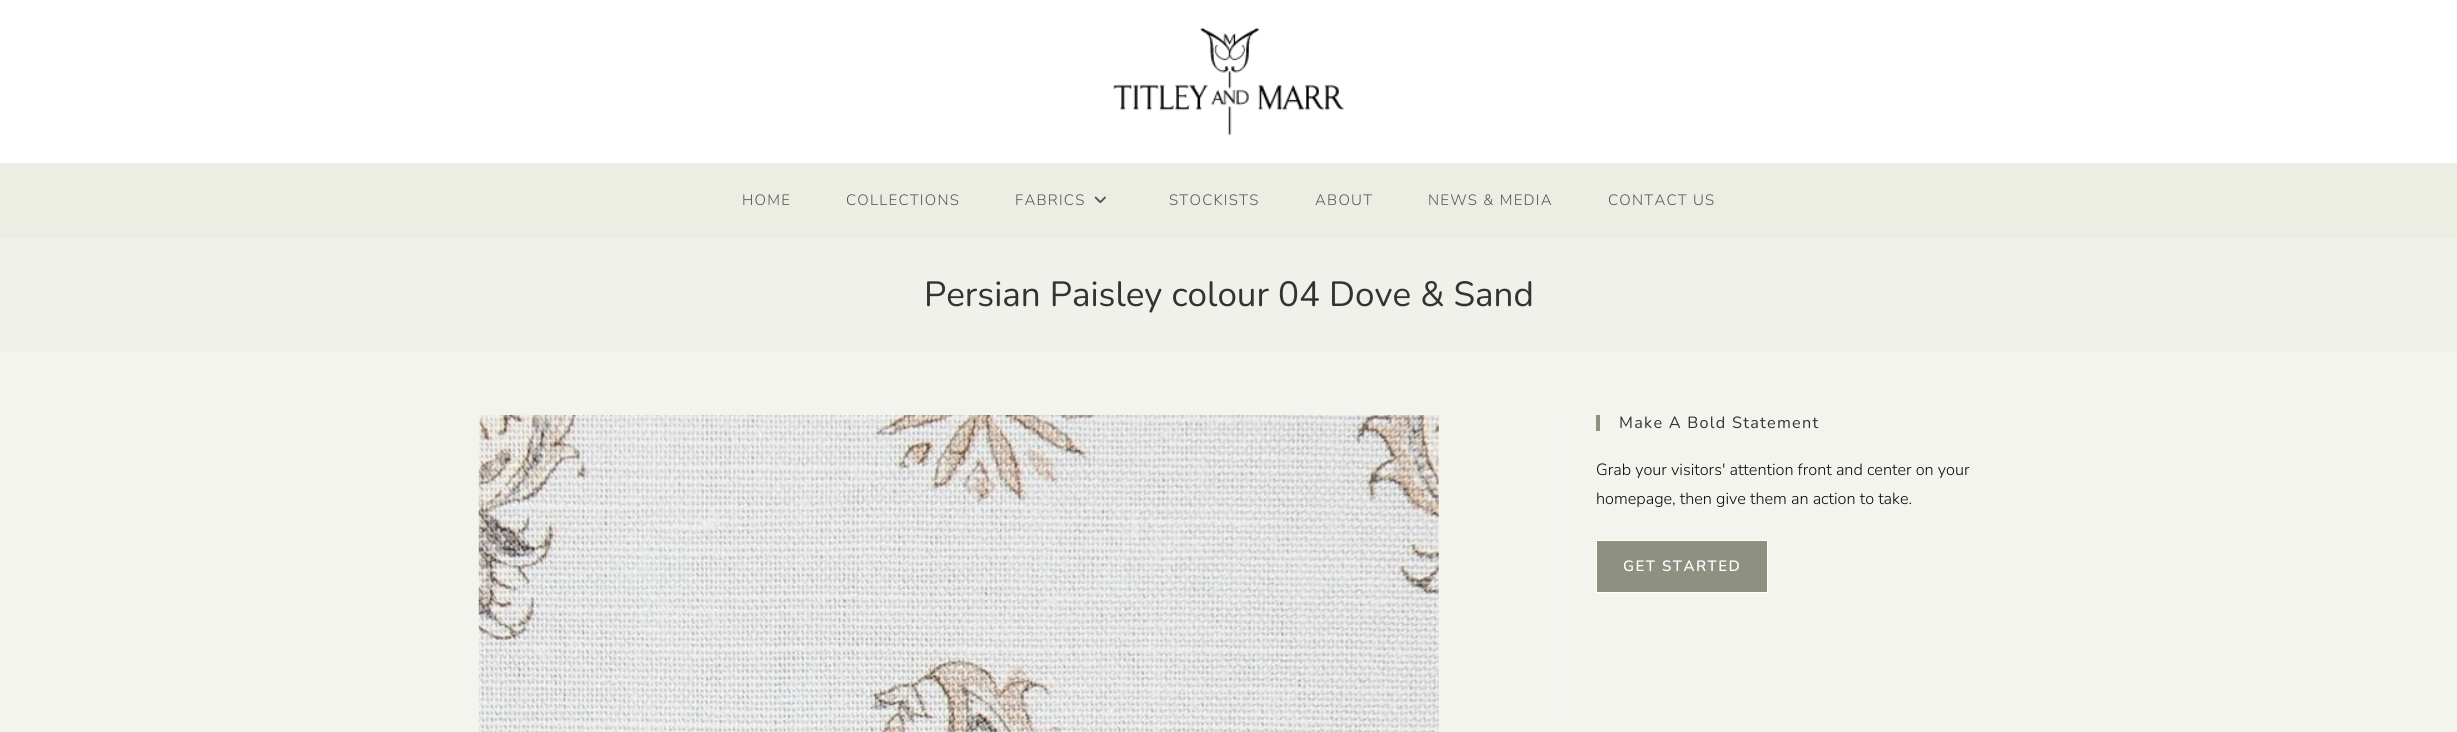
#include <cairo.h>
#include <math.h>
#include <stddef.h>

typedef struct { double x, y; const char *s; } line_t;

static void ink(cairo_t *ctx, unsigned color) {
    cairo_set_source_rgb(ctx, (color >> 16) / 255.0, (color >> 8 & 255) / 255.0, (color & 255) / 255.0);
}

static void write_spaced(cairo_t *ctx, double x, double y, const char *s, double letter, double word) {
    cairo_move_to(ctx, x, y);
    while (*s) {
        char ch[5] = {0};
        int n = 0;
        do ch[n++] = *s++; while ((*s & 0xC0) == 0x80);
        cairo_show_text(ctx, ch);
        cairo_rel_move_to(ctx, letter + word * (*ch == ' '), 0);
    }
}

static void paste(cairo_t *ctx, const char *path, double x, double y, double w, double h) {
    cairo_surface_t *image = cairo_image_surface_create_from_png(path);
    cairo_save(ctx);
    cairo_set_source_surface(ctx, image, x, y);
    cairo_rectangle(ctx, x, y, w, h);
    cairo_fill(ctx);
    cairo_restore(ctx);
    cairo_surface_destroy(image);
}

int main(void) {
    cairo_surface_t *surface = cairo_image_surface_create(CAIRO_FORMAT_RGB24, 2457, 732);
    cairo_t *ctx = cairo_create(surface);
    cairo_font_options_t *options = cairo_font_options_create();
    cairo_font_options_set_hint_metrics(options, CAIRO_HINT_METRICS_OFF);
    cairo_font_options_set_hint_style(options, CAIRO_HINT_STYLE_NONE);
    cairo_set_font_options(ctx, options);
    cairo_set_miter_limit(ctx, 4);
    ink(ctx, 0xF4F4EF);
    cairo_paint(ctx);
    ink(ctx, 0xF1F1F1);
    cairo_rectangle(ctx, 0, 238, 2457, 1);
    cairo_fill(ctx);
    ink(ctx, 0xFFFFFF);
    cairo_rectangle(ctx, 0, 0, 2457, 163);
    cairo_fill(ctx);
    paste(ctx, "media/1.png", 1113, 27, 231, 109);
    ink(ctx, 0xECEDE3);
    cairo_rectangle(ctx, 0, 163, 2457, 75);
    cairo_fill(ctx);
    cairo_select_font_face(ctx, "Nunito Light", CAIRO_FONT_SLANT_NORMAL, CAIRO_FONT_WEIGHT_NORMAL);
    cairo_set_font_size(ctx, 15);
    ink(ctx, 0x555555);
    {
        static const line_t items[] = {
            {742, 205, "HOME"},
            {846, 205, "COLLECTIONS"},
            {1015, 205, "FABRICS"},
        };
        for (size_t i = 0; i < sizeof items / sizeof *items; i++) {
            write_spaced(ctx, items[i].x, items[i].y, items[i].s, 1.25, 0);
        }
    }
    paste(ctx, "media/2.png", 1094, 196, 12, 8);
    {
        static const line_t items[] = {
            {1169, 205, "STOCKISTS"},
            {1315, 205, "ABOUT"},
            {1428, 205, "NEWS & MEDIA"},
            {1608, 205, "CONTACT US"},
        };
        for (size_t i = 0; i < sizeof items / sizeof *items; i++) {
            write_spaced(ctx, items[i].x, items[i].y, items[i].s, 1.25, 0);
        }
    }
    ink(ctx, 0xF0F1EA);
    cairo_rectangle(ctx, 0, 239, 2457, 114);
    cairo_fill(ctx);
    cairo_select_font_face(ctx, "Nunito", CAIRO_FONT_SLANT_NORMAL, CAIRO_FONT_WEIGHT_NORMAL);
    cairo_set_font_size(ctx, 35);
    ink(ctx, 0x333333);
    cairo_move_to(ctx, 924, 306);
    cairo_show_text(ctx, "Persian Paisley colour 04 Dove & Sand");
    ink(ctx, 0xF1F1F1);
    cairo_rectangle(ctx, 1558, 415, 1, 317);
    cairo_fill(ctx);
    paste(ctx, "media/3.png", 478, 415, 961, 317);
    ink(ctx, 0x8E9180);
    cairo_rectangle(ctx, 1596, 415, 4, 16);
    cairo_fill(ctx);
    cairo_set_font_size(ctx, 16.25);
    ink(ctx, 0x333333);
    write_spaced(ctx, 1619, 428, "Make A Bold Statement", 1.25, 0);
    cairo_select_font_face(ctx, "Nunito Light", CAIRO_FONT_SLANT_NORMAL, CAIRO_FONT_WEIGHT_NORMAL);
    ink(ctx, 0x0A0A0A);
    cairo_move_to(ctx, 1596, 475);
    cairo_show_text(ctx, "Grab your visitors' attention front and center on your");
    cairo_move_to(ctx, 1596, 504);
    cairo_show_text(ctx, "homepage, then give them an action to take.");
    ink(ctx, 0x8E9180);
    cairo_rectangle(ctx, 1596.5, 540.5, 171, 52);
    cairo_fill_preserve(ctx);
    ink(ctx, 0xFFFFFF);
    cairo_set_line_width(ctx, 1);
    cairo_stroke(ctx);
    cairo_select_font_face(ctx, "Nunito SemiBold", CAIRO_FONT_SLANT_NORMAL, CAIRO_FONT_WEIGHT_NORMAL);
    cairo_set_font_size(ctx, 15);
    write_spaced(ctx, 1623, 571, "GET STARTED", 1.5, 0);
    cairo_surface_write_to_png(surface, "image.png");
    cairo_font_options_destroy(options);
    cairo_destroy(ctx);
    cairo_surface_destroy(surface);
    return 0;
}
